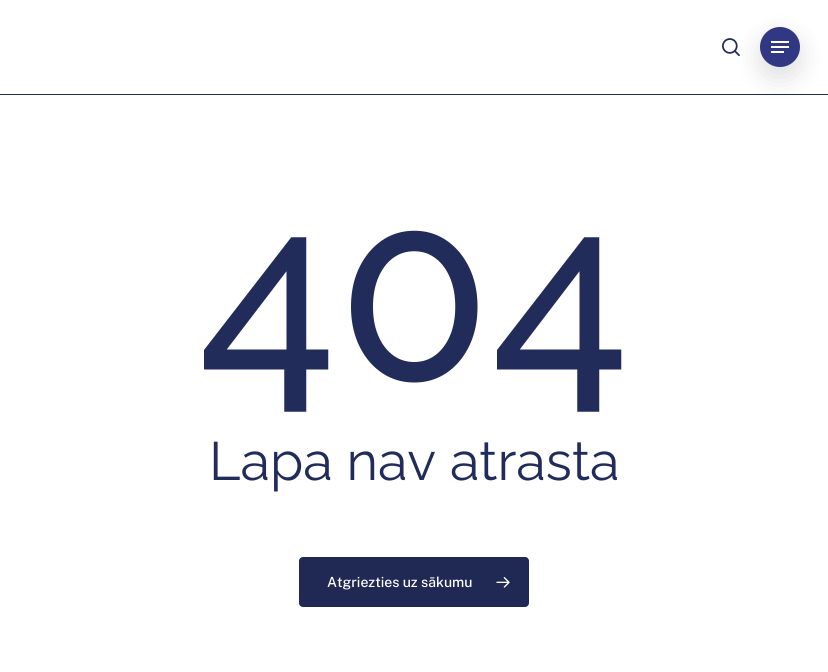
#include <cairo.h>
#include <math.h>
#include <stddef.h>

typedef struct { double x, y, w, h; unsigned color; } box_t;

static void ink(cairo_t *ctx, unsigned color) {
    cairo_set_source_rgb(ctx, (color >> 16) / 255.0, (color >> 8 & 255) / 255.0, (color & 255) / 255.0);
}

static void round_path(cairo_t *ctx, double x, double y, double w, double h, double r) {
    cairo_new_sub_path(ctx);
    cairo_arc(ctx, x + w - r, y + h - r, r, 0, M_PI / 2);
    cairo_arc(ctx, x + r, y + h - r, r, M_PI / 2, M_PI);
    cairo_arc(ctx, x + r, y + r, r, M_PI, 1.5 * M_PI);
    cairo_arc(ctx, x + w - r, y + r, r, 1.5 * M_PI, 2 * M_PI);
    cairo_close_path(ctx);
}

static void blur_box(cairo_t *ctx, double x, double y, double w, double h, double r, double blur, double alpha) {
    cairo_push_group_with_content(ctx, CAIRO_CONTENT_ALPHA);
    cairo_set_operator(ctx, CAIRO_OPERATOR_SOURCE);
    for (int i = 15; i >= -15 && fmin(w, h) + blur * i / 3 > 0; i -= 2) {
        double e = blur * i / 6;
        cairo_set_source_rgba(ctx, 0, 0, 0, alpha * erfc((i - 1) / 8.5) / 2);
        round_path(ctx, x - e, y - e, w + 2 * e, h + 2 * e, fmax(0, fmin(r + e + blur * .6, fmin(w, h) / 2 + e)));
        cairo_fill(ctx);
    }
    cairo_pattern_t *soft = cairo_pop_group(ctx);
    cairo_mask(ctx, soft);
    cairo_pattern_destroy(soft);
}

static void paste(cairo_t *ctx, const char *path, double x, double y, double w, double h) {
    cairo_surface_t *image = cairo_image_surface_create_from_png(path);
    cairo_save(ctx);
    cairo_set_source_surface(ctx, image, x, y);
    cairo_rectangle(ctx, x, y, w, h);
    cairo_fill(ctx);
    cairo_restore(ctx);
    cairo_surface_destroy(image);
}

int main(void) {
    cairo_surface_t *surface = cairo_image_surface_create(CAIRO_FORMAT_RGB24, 828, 672);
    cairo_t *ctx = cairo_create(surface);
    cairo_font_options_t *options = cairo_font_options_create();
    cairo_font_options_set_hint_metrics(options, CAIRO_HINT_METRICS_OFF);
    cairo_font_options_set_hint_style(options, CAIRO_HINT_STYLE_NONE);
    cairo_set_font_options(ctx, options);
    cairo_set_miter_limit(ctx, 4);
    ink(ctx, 0xFFFFFF);
    cairo_paint(ctx);
    ink(ctx, 0x212C5B);
    cairo_rectangle(ctx, 0, 94, 828, 1);
    cairo_fill(ctx);
    paste(ctx, "media/1.png", 722, 38, 18, 19);
    ink(ctx, 0x000000);
    blur_box(ctx, 760, 37, 40, 40, 20, 12.5, 0.13);
    ink(ctx, 0x313782);
    cairo_arc(ctx, 780, 47, 20, 0, 2 * M_PI);
    cairo_fill(ctx);
    {
        static const box_t items[] = {
            {771, 41, 18, 2, 0xFFFFFF},
            {771, 51, 13, 2, 0xFFFFFF},
            {771, 46, 18, 2, 0xFFFFFF},
        };
        for (size_t i = 0; i < sizeof items / sizeof *items; i++) {
            ink(ctx, items[i].color);
            cairo_rectangle(ctx, items[i].x, items[i].y, items[i].w, items[i].h);
            cairo_fill(ctx);
        }
    }
    cairo_select_font_face(ctx, "Raleway Medium", CAIRO_FONT_SLANT_NORMAL, CAIRO_FONT_WEIGHT_NORMAL);
    cairo_set_font_size(ctx, 250);
    ink(ctx, 0x212C5B);
    cairo_move_to(ctx, 198, 380);
    cairo_show_text(ctx, "404");
    cairo_select_font_face(ctx, "Raleway", CAIRO_FONT_SLANT_NORMAL, CAIRO_FONT_WEIGHT_NORMAL);
    cairo_set_font_size(ctx, 54);
    cairo_move_to(ctx, 209, 480);
    cairo_show_text(ctx, "Lapa nav atrasta");
    ink(ctx, 0x202954);
    round_path(ctx, 299, 557, 230, 50, 4);
    cairo_fill(ctx);
    cairo_select_font_face(ctx, "Public Sans Thin", CAIRO_FONT_SLANT_NORMAL, CAIRO_FONT_WEIGHT_NORMAL);
    cairo_set_font_size(ctx, 14);
    ink(ctx, 0xFFFFFF);
    cairo_move_to(ctx, 327, 587);
    cairo_show_text(ctx, "Atgriezties uz sākumu");
    paste(ctx, "media/2.png", 496, 577, 14, 11);
    cairo_surface_write_to_png(surface, "image.png");
    cairo_font_options_destroy(options);
    cairo_destroy(ctx);
    cairo_surface_destroy(surface);
    return 0;
}
